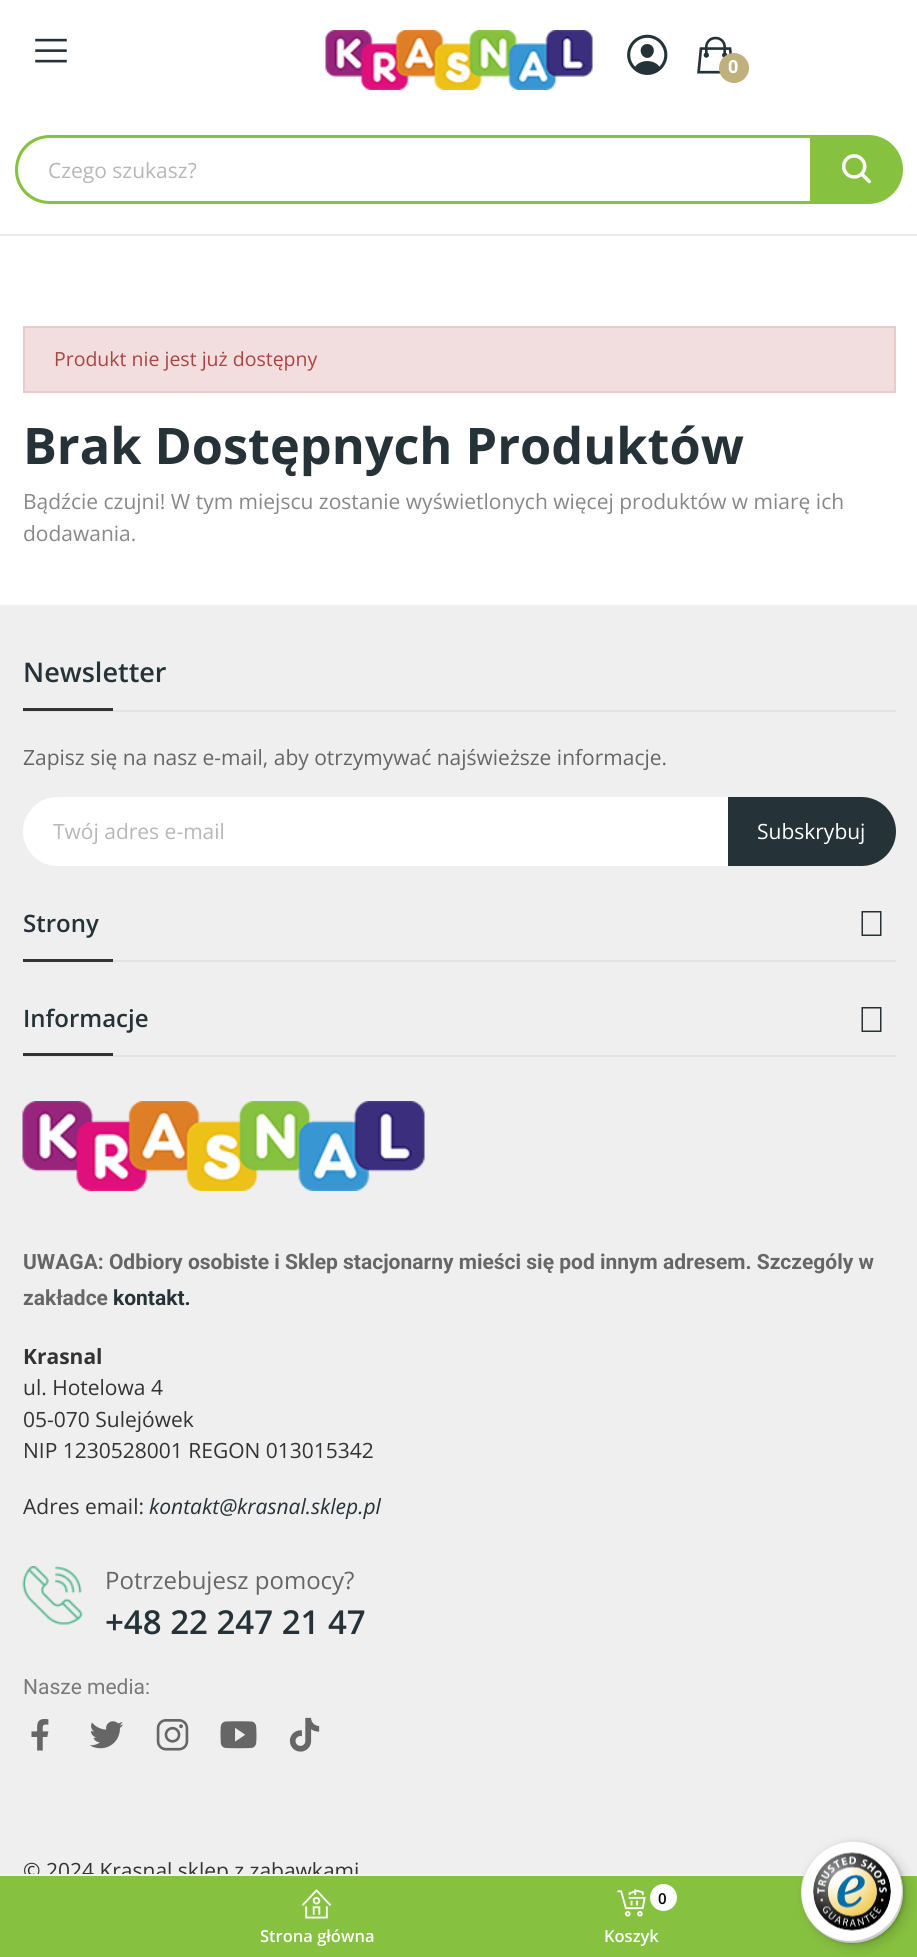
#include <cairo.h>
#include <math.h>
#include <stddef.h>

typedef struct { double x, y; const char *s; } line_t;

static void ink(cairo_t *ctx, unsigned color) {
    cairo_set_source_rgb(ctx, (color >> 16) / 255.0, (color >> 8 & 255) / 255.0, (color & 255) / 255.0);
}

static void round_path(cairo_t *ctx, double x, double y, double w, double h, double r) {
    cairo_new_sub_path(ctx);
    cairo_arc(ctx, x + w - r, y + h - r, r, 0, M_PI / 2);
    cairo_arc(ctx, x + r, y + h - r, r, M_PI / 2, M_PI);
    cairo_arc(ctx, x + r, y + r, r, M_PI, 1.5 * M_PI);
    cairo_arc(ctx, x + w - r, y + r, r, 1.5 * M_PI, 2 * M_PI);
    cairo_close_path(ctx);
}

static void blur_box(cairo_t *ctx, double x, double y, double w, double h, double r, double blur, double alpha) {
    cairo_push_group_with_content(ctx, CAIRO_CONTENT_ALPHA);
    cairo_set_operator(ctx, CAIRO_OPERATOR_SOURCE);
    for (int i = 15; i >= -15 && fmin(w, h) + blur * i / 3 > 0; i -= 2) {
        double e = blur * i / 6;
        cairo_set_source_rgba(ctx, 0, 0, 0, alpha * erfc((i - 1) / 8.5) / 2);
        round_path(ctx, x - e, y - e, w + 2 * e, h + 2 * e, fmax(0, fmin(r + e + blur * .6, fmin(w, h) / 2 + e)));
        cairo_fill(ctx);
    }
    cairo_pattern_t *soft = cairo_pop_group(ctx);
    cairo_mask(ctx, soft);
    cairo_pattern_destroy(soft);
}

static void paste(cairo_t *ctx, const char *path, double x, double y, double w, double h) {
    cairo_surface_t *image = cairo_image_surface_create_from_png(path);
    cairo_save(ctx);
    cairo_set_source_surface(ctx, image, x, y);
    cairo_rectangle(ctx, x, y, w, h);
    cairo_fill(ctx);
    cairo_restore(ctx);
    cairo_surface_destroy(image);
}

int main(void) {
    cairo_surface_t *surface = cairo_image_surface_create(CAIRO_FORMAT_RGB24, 917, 1957);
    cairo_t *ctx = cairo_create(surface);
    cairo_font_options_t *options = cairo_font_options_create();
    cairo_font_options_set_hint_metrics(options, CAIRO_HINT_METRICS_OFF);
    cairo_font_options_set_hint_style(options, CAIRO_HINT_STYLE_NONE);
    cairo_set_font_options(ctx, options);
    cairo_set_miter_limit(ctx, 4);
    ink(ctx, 0xFFFFFF);
    cairo_paint(ctx);
    ink(ctx, 0xEBEBEB);
    cairo_rectangle(ctx, 0, 234, 917, 2);
    cairo_fill(ctx);
    paste(ctx, "media/1.png", 35, 38, 32, 25);
    paste(ctx, "media/2.png", 325, 30, 268, 60);
    paste(ctx, "media/3.png", 627, 34, 41, 41);
    paste(ctx, "media/4.png", 697, 36, 35, 38);
    ink(ctx, 0xC0B07D);
    cairo_arc(ctx, 734, 68, 15, 0, 2 * M_PI);
    cairo_fill(ctx);
    cairo_select_font_face(ctx, "Open Sans", CAIRO_FONT_SLANT_NORMAL, CAIRO_FONT_WEIGHT_BOLD);
    cairo_set_font_size(ctx, 18);
    ink(ctx, 0xFFFFFF);
    cairo_move_to(ctx, 728, 73);
    cairo_show_text(ctx, "0");
    ink(ctx, 0x86C140);
    cairo_set_fill_rule(ctx, CAIRO_FILL_RULE_EVEN_ODD);
    cairo_new_path(ctx);
    cairo_move_to(ctx, 50, 135);
    cairo_line_to(ctx, 810, 135);
    cairo_line_to(ctx, 810, 204);
    cairo_line_to(ctx, 50, 204);
    cairo_curve_to(ctx, 30, 204, 15, 189, 15, 170);
    cairo_curve_to(ctx, 15, 150, 30, 135, 50, 135);
    cairo_close_path(ctx);
    cairo_move_to(ctx, 50, 138);
    cairo_line_to(ctx, 810, 138);
    cairo_line_to(ctx, 810, 201);
    cairo_line_to(ctx, 50, 201);
    cairo_curve_to(ctx, 32, 201, 18, 187, 18, 170);
    cairo_curve_to(ctx, 18, 152, 32, 138, 50, 138);
    cairo_close_path(ctx);
    cairo_fill(ctx);
    cairo_select_font_face(ctx, "Open Sans", CAIRO_FONT_SLANT_NORMAL, CAIRO_FONT_WEIGHT_NORMAL);
    cairo_set_font_size(ctx, 21);
    ink(ctx, 0xB7B7B7);
    cairo_move_to(ctx, 48, 178);
    cairo_show_text(ctx, "Czego szukasz?");
    ink(ctx, 0x86C140);
    cairo_new_path(ctx);
    cairo_move_to(ctx, 810, 135);
    cairo_line_to(ctx, 868.5, 135);
    cairo_curve_to(ctx, 887.5, 135, 903, 150.5, 903, 169.5);
    cairo_curve_to(ctx, 903, 188.5, 887.5, 204, 868.5, 204);
    cairo_line_to(ctx, 810, 204);
    cairo_close_path(ctx);
    cairo_fill(ctx);
    paste(ctx, "media/5.png", 841, 154, 30, 30);
    ink(ctx, 0xF2DEDE);
    cairo_rectangle(ctx, 24, 327, 871, 65);
    cairo_fill_preserve(ctx);
    ink(ctx, 0xEBCCCC);
    cairo_stroke(ctx);
    cairo_set_font_size(ctx, 19.5);
    ink(ctx, 0xA94442);
    cairo_move_to(ctx, 54, 366);
    cairo_show_text(ctx, "Produkt nie jest już dostępny");
    cairo_select_font_face(ctx, "Open Sans", CAIRO_FONT_SLANT_NORMAL, CAIRO_FONT_WEIGHT_BOLD);
    cairo_set_font_size(ctx, 50.4);
    ink(ctx, 0x253237);
    cairo_move_to(ctx, 23, 464);
    cairo_show_text(ctx, "Brak Dostępnych Produktów");
    cairo_select_font_face(ctx, "Open Sans", CAIRO_FONT_SLANT_NORMAL, CAIRO_FONT_WEIGHT_NORMAL);
    cairo_set_font_size(ctx, 21);
    ink(ctx, 0x888888);
    cairo_move_to(ctx, 23, 509);
    cairo_show_text(ctx, "Bądźcie czujni! W tym miejscu zostanie wyświetlonych więcej produktów w miarę ich");
    cairo_move_to(ctx, 23, 541);
    cairo_show_text(ctx, "dodawania.");
    ink(ctx, 0xEFEFEF);
    cairo_rectangle(ctx, 0, 605, 917, 1269);
    cairo_fill(ctx);
    ink(ctx, 0xE3E3E3);
    cairo_rectangle(ctx, 23, 710, 873, 2);
    cairo_fill(ctx);
    cairo_select_font_face(ctx, "Open Sans SemiBold", CAIRO_FONT_SLANT_NORMAL, CAIRO_FONT_WEIGHT_NORMAL);
    cairo_set_font_size(ctx, 27);
    ink(ctx, 0x253237);
    cairo_move_to(ctx, 23, 682);
    cairo_show_text(ctx, "Newsletter");
    ink(ctx, 0x333333);
    cairo_rectangle(ctx, 23, 708, 90, 3);
    cairo_fill(ctx);
    cairo_select_font_face(ctx, "Open Sans", CAIRO_FONT_SLANT_NORMAL, CAIRO_FONT_WEIGHT_NORMAL);
    cairo_set_font_size(ctx, 21);
    ink(ctx, 0x666666);
    cairo_move_to(ctx, 23, 765);
    cairo_show_text(ctx, "Zapisz się na nasz e-mail, aby otrzymywać najświeższe informacje.");
    ink(ctx, 0xFFFFFF);
    cairo_new_path(ctx);
    cairo_move_to(ctx, 57.5, 797);
    cairo_line_to(ctx, 728, 797);
    cairo_line_to(ctx, 728, 866);
    cairo_line_to(ctx, 57.5, 866);
    cairo_curve_to(ctx, 38.5, 866, 23, 850.5, 23, 831.5);
    cairo_curve_to(ctx, 23, 812.5, 38.5, 797, 57.5, 797);
    cairo_close_path(ctx);
    cairo_fill(ctx);
    ink(ctx, 0xB7B7B7);
    cairo_move_to(ctx, 53, 839);
    cairo_show_text(ctx, "Twój adres e-mail");
    ink(ctx, 0x253237);
    cairo_new_path(ctx);
    cairo_move_to(ctx, 728, 797);
    cairo_line_to(ctx, 861.5, 797);
    cairo_curve_to(ctx, 880.5, 797, 896, 812.5, 896, 831.5);
    cairo_curve_to(ctx, 896, 850.5, 880.5, 866, 861.5, 866);
    cairo_line_to(ctx, 728, 866);
    cairo_close_path(ctx);
    cairo_fill(ctx);
    ink(ctx, 0xFFFFFF);
    cairo_move_to(ctx, 757, 839);
    cairo_show_text(ctx, "Subskrybuj");
    ink(ctx, 0xE3E3E3);
    cairo_rectangle(ctx, 113, 960, 783, 2);
    cairo_fill(ctx);
    cairo_select_font_face(ctx, "Open Sans SemiBold", CAIRO_FONT_SLANT_NORMAL, CAIRO_FONT_WEIGHT_NORMAL);
    cairo_set_font_size(ctx, 24);
    ink(ctx, 0x253237);
    cairo_move_to(ctx, 23, 932);
    cairo_show_text(ctx, "Strony");
    cairo_set_fill_rule(ctx, CAIRO_FILL_RULE_WINDING);
    cairo_new_path(ctx);
    cairo_move_to(ctx, 861.5, 911);
    cairo_line_to(ctx, 881.5, 911);
    cairo_line_to(ctx, 881.5, 936);
    cairo_line_to(ctx, 861.5, 936);
    cairo_close_path(ctx);
    cairo_move_to(ctx, 863, 912.5);
    cairo_line_to(ctx, 863, 934.5);
    cairo_line_to(ctx, 880, 934.5);
    cairo_line_to(ctx, 880, 912.5);
    cairo_close_path(ctx);
    cairo_fill(ctx);
    ink(ctx, 0x333333);
    cairo_rectangle(ctx, 23, 959, 90, 3);
    cairo_fill(ctx);
    ink(ctx, 0xE3E3E3);
    cairo_rectangle(ctx, 23, 1055, 873, 2);
    cairo_fill(ctx);
    ink(ctx, 0x253237);
    cairo_move_to(ctx, 23, 1027);
    cairo_show_text(ctx, "Informacje");
    cairo_new_path(ctx);
    cairo_move_to(ctx, 861.5, 1007);
    cairo_line_to(ctx, 881.5, 1007);
    cairo_line_to(ctx, 881.5, 1032);
    cairo_line_to(ctx, 861.5, 1032);
    cairo_close_path(ctx);
    cairo_move_to(ctx, 863, 1008.5);
    cairo_line_to(ctx, 863, 1030.5);
    cairo_line_to(ctx, 880, 1030.5);
    cairo_line_to(ctx, 880, 1008.5);
    cairo_close_path(ctx);
    cairo_fill(ctx);
    ink(ctx, 0x333333);
    cairo_rectangle(ctx, 23, 1053, 90, 3);
    cairo_fill(ctx);
    paste(ctx, "media/6.png", 22, 1101, 403, 90);
    cairo_select_font_face(ctx, "Roboto", CAIRO_FONT_SLANT_NORMAL, CAIRO_FONT_WEIGHT_BOLD);
    cairo_set_font_size(ctx, 21);
    ink(ctx, 0x666666);
    cairo_move_to(ctx, 23, 1269);
    cairo_show_text(ctx, "UWAGA: Odbiory osobiste i Sklep stacjonarny mieści się pod innym adresem. Szczególy w");
    cairo_move_to(ctx, 23, 1305);
    cairo_show_text(ctx, "zakładce");
    ink(ctx, 0x253237);
    cairo_move_to(ctx, 113, 1305);
    cairo_show_text(ctx, "kontakt.");
    cairo_select_font_face(ctx, "Open Sans", CAIRO_FONT_SLANT_NORMAL, CAIRO_FONT_WEIGHT_BOLD);
    ink(ctx, 0x333333);
    cairo_move_to(ctx, 23, 1364);
    cairo_show_text(ctx, "Krasnal");
    cairo_select_font_face(ctx, "Open Sans", CAIRO_FONT_SLANT_NORMAL, CAIRO_FONT_WEIGHT_NORMAL);
    {
        static const line_t items[] = {
            {23, 1395, "ul. Hotelowa 4"},
            {23, 1427, "05-070 Sulejówek"},
            {23, 1458, "NIP 1230528001 REGON 013015342"},
            {23, 1514, "Adres email:"},
        };
        for (size_t i = 0; i < sizeof items / sizeof *items; i++) {
            cairo_move_to(ctx, items[i].x, items[i].y);
            cairo_show_text(ctx, items[i].s);
        }
    }
    cairo_select_font_face(ctx, "Open Sans", CAIRO_FONT_SLANT_ITALIC, CAIRO_FONT_WEIGHT_NORMAL);
    ink(ctx, 0x253237);
    cairo_move_to(ctx, 149, 1514);
    cairo_show_text(ctx, "kontakt@krasnal.sklep.pl");
    paste(ctx, "media/7.png", 22, 1566, 61, 59);
    cairo_select_font_face(ctx, "Open Sans", CAIRO_FONT_SLANT_NORMAL, CAIRO_FONT_WEIGHT_NORMAL);
    cairo_set_font_size(ctx, 24);
    ink(ctx, 0x666666);
    cairo_move_to(ctx, 105, 1589);
    cairo_show_text(ctx, "Potrzebujesz pomocy?");
    cairo_select_font_face(ctx, "Open Sans SemiBold", CAIRO_FONT_SLANT_NORMAL, CAIRO_FONT_WEIGHT_NORMAL);
    cairo_set_font_size(ctx, 33);
    ink(ctx, 0x253237);
    cairo_move_to(ctx, 105, 1634);
    cairo_show_text(ctx, "+48 22 247 21 47");
    cairo_select_font_face(ctx, "Roboto", CAIRO_FONT_SLANT_NORMAL, CAIRO_FONT_WEIGHT_NORMAL);
    cairo_set_font_size(ctx, 21);
    ink(ctx, 0x7A7A7A);
    cairo_move_to(ctx, 23, 1694);
    cairo_show_text(ctx, "Nasze media:");
    paste(ctx, "media/8.png", 31, 1719, 18, 32);
    paste(ctx, "media/9.png", 90, 1721, 34, 28);
    paste(ctx, "media/10.png", 156, 1719, 33, 32);
    paste(ctx, "media/11.png", 220, 1721, 37, 28);
    paste(ctx, "media/12.png", 289, 1717, 31, 35);
    cairo_select_font_face(ctx, "Open Sans", CAIRO_FONT_SLANT_NORMAL, CAIRO_FONT_WEIGHT_NORMAL);
    ink(ctx, 0x333333);
    cairo_move_to(ctx, 23, 1878);
    cairo_show_text(ctx, "© 2024 Krasnal sklep z zabawkami");
    ink(ctx, 0x86C140);
    cairo_rectangle(ctx, 0, 1876, 917, 81);
    cairo_fill(ctx);
    ink(ctx, 0xF2F2F2);
    cairo_rectangle(ctx, 0, 1874, 917, 2);
    cairo_fill(ctx);
    paste(ctx, "media/13.png", 302, 1889, 30, 30);
    cairo_select_font_face(ctx, "Open Sans SemiBold", CAIRO_FONT_SLANT_NORMAL, CAIRO_FONT_WEIGHT_NORMAL);
    cairo_set_font_size(ctx, 16.5);
    ink(ctx, 0xFFFFFF);
    cairo_move_to(ctx, 260, 1942);
    cairo_show_text(ctx, "Strona główna");
    paste(ctx, "media/14.png", 617, 1889, 29, 28);
    cairo_arc(ctx, 663.5, 1897.5, 13.5, 0, 2 * M_PI);
    cairo_fill(ctx);
    cairo_set_font_size(ctx, 15);
    ink(ctx, 0x000000);
    cairo_move_to(ctx, 658, 1904);
    cairo_show_text(ctx, "0");
    cairo_set_font_size(ctx, 16.5);
    ink(ctx, 0xFFFFFF);
    cairo_move_to(ctx, 604, 1942);
    cairo_show_text(ctx, "Koszyk");
    ink(ctx, 0x000000);
    blur_box(ctx, 806, 1845, 102, 102, 51, 6, 0.15);
    blur_box(ctx, 803, 1842, 102, 102, 51, 1.5, 0.15);
    ink(ctx, 0xFFFFFF);
    cairo_arc(ctx, 852, 1892, 51, 0, 2 * M_PI);
    cairo_fill(ctx);
    cairo_set_source_rgba(ctx, 0, 0, 0, 0.1);
    cairo_new_path(ctx);
    cairo_move_to(ctx, 854, 1842);
    cairo_curve_to(ctx, 864, 1842, 872, 1845, 880, 1849);
    cairo_curve_to(ctx, 857, 1834, 825, 1841, 810, 1863);
    cairo_curve_to(ctx, 794, 1886, 800, 1917, 822, 1933);
    cairo_curve_to(ctx, 783, 1904, 804, 1842, 854, 1842);
    cairo_close_path(ctx);
    cairo_fill(ctx);
    cairo_set_source_rgba(ctx, 0, 0, 0, 0.2);
    cairo_new_path(ctx);
    cairo_move_to(ctx, 808, 1917);
    cairo_curve_to(ctx, 813, 1927, 822, 1935, 832, 1939);
    cairo_curve_to(ctx, 877, 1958, 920, 1908, 896, 1867);
    cairo_curve_to(ctx, 908, 1889, 901, 1918, 879, 1932);
    cairo_curve_to(ctx, 855, 1948, 823, 1942, 808, 1917);
    cairo_close_path(ctx);
    cairo_fill(ctx);
    cairo_set_source_rgba(ctx, 0.196, 0.196, 0.196, 0.2);
    cairo_new_path(ctx);
    cairo_move_to(ctx, 813, 1925);
    cairo_curve_to(ctx, 832, 1948, 867, 1949, 888, 1928);
    cairo_curve_to(ctx, 906, 1910, 908, 1880, 892, 1860);
    cairo_curve_to(ctx, 898, 1868, 901, 1877, 902, 1887);
    cairo_curve_to(ctx, 906, 1936, 846, 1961, 813, 1925);
    cairo_close_path(ctx);
    cairo_fill(ctx);
    cairo_set_source_rgba(ctx, 1, 1, 1, 0.3);
    cairo_new_path(ctx);
    cairo_move_to(ctx, 813, 1925);
    cairo_curve_to(ctx, 832, 1948, 867, 1949, 888, 1928);
    cairo_curve_to(ctx, 909, 1907, 908, 1872, 885, 1853);
    cairo_curve_to(ctx, 907, 1873, 908, 1906, 887, 1927);
    cairo_curve_to(ctx, 866, 1948, 833, 1947, 813, 1925);
    cairo_close_path(ctx);
    cairo_fill(ctx);
    paste(ctx, "media/15.png", 813, 1852, 78, 79);
    cairo_surface_write_to_png(surface, "image.png");
    cairo_font_options_destroy(options);
    cairo_destroy(ctx);
    cairo_surface_destroy(surface);
    return 0;
}
